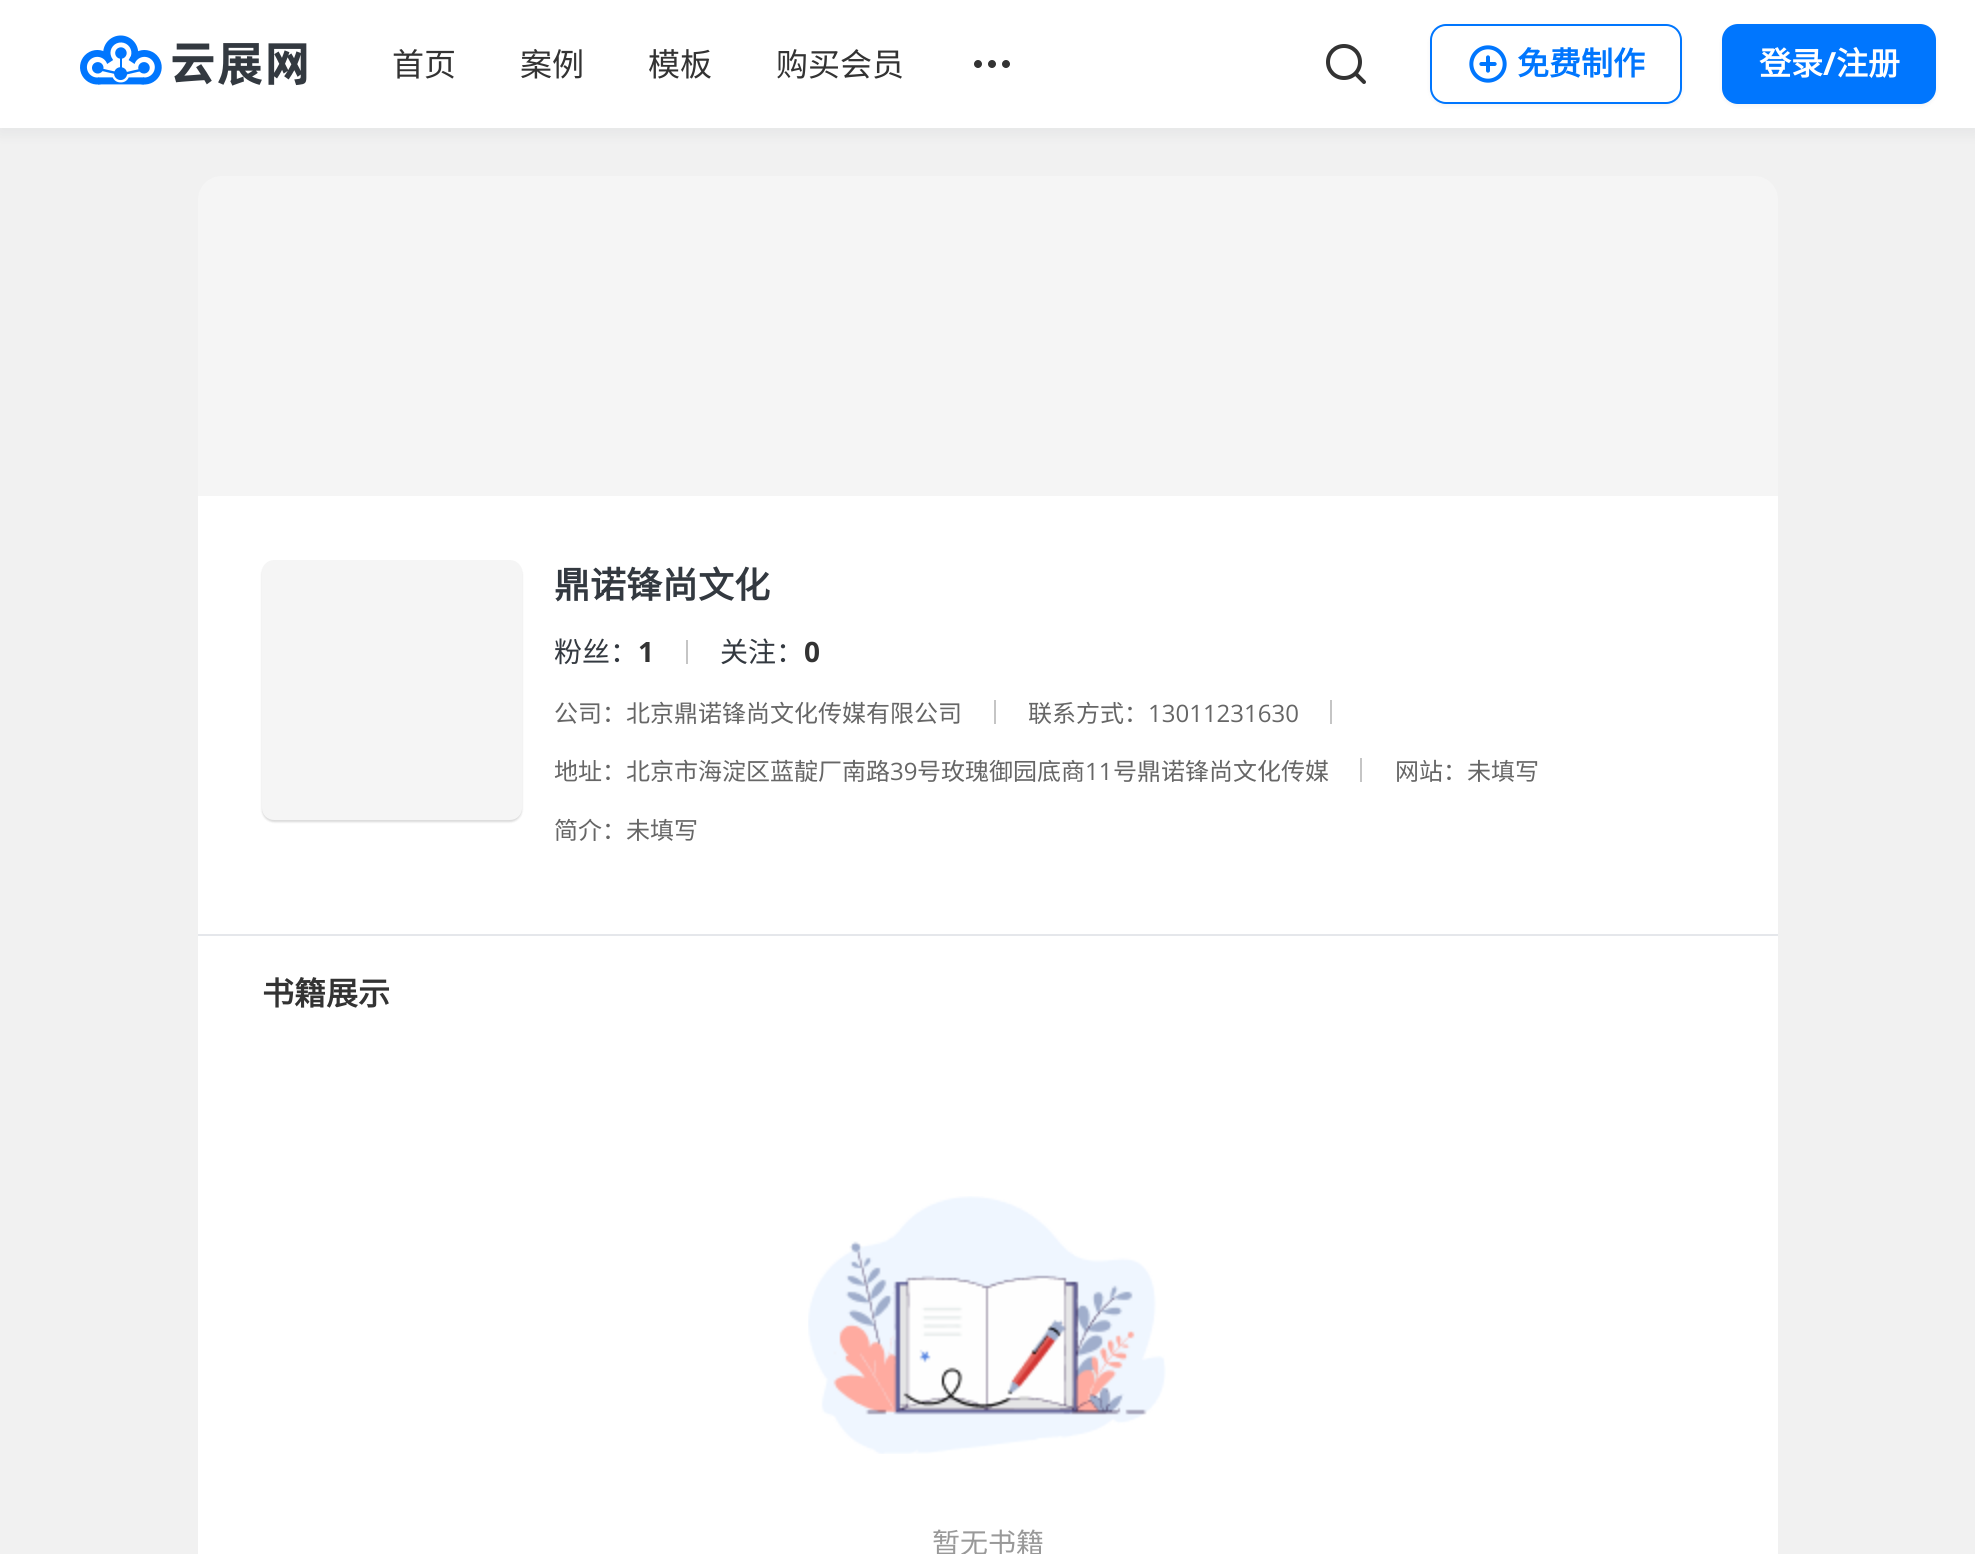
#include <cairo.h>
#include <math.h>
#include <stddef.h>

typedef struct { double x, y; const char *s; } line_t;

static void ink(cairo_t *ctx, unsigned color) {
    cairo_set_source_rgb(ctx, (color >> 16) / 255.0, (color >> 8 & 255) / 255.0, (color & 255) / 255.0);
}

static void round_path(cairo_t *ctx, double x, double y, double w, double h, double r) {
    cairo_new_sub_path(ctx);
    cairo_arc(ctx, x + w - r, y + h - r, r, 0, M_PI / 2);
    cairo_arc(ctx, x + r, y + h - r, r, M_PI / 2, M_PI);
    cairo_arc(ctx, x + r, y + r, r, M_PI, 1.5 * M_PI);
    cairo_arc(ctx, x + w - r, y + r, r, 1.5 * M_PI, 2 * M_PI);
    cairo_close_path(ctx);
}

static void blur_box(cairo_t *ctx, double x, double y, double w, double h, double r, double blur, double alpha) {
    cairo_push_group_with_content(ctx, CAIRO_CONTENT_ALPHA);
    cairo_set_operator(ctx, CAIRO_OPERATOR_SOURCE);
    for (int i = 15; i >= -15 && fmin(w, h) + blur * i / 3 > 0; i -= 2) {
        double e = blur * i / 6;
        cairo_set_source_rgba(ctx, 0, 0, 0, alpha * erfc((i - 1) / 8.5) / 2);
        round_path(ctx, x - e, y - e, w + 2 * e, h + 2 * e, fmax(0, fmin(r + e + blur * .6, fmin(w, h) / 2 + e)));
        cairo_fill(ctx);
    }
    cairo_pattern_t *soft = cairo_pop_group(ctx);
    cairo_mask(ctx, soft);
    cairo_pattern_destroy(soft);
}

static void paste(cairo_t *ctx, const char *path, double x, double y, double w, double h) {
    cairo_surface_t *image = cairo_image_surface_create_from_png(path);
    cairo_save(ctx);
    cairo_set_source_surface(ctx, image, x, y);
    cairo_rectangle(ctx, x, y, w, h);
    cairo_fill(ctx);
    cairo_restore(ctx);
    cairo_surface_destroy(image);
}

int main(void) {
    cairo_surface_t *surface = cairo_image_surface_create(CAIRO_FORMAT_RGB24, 1975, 1554);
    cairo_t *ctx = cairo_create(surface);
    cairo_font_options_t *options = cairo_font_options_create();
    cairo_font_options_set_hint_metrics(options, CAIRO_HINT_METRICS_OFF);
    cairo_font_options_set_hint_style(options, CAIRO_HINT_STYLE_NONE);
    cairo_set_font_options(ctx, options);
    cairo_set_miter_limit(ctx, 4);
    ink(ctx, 0xF1F1F1);
    cairo_paint(ctx);
    ink(ctx, 0x333940);
    blur_box(ctx, 0, 4, 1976, 128, 0, 8, 0.08);
    ink(ctx, 0xFFFFFF);
    cairo_rectangle(ctx, 0, 0, 1975, 128);
    cairo_fill(ctx);
    paste(ctx, "media/1.png", 80, 35, 227, 51);
    cairo_select_font_face(ctx, "Noto Sans CJK SC", CAIRO_FONT_SLANT_NORMAL, CAIRO_FONT_WEIGHT_NORMAL);
    cairo_set_font_size(ctx, 32);
    ink(ctx, 0x333333);
    {
        static const line_t items[] = {
            {392, 76, "首页"},
            {520, 76, "案例"},
            {648, 76, "模板"},
            {776, 76, "购买会员"},
        };
        for (size_t i = 0; i < sizeof items / sizeof *items; i++) {
            cairo_move_to(ctx, items[i].x, items[i].y);
            cairo_show_text(ctx, items[i].s);
        }
    }
    paste(ctx, "media/2.png", 974, 60, 36, 8);
    cairo_new_path(ctx);
    cairo_move_to(ctx, 1344, 78);
    cairo_curve_to(ctx, 1353, 78, 1360, 71, 1360, 62);
    cairo_curve_to(ctx, 1360, 53, 1353, 46, 1344, 46);
    cairo_curve_to(ctx, 1335, 46, 1328, 53, 1328, 62);
    cairo_curve_to(ctx, 1328, 71, 1335, 78, 1344, 78);
    cairo_close_path(ctx);
    cairo_move_to(ctx, 1364, 82);
    cairo_line_to(ctx, 1355.5, 73.5);
    cairo_set_line_width(ctx, 4);
    cairo_set_line_cap(ctx, CAIRO_LINE_CAP_ROUND);
    cairo_set_line_join(ctx, CAIRO_LINE_JOIN_ROUND);
    cairo_stroke(ctx);
    ink(ctx, 0x101828);
    blur_box(ctx, 1430, 26, 252, 80, 16, 2, 0.05);
    ink(ctx, 0xFFFFFF);
    round_path(ctx, 1431, 25, 250, 78, 15);
    cairo_fill_preserve(ctx);
    ink(ctx, 0x0076FE);
    cairo_set_line_width(ctx, 2);
    cairo_set_line_cap(ctx, CAIRO_LINE_CAP_BUTT);
    cairo_set_line_join(ctx, CAIRO_LINE_JOIN_MITER);
    cairo_stroke(ctx);
    paste(ctx, "media/3.png", 1469, 45, 38, 38);
    cairo_select_font_face(ctx, "Noto Sans CJK SC", CAIRO_FONT_SLANT_NORMAL, CAIRO_FONT_WEIGHT_BOLD);
    cairo_move_to(ctx, 1517, 75);
    cairo_show_text(ctx, "免费制作");
    ink(ctx, 0x101828);
    blur_box(ctx, 1722, 26, 214, 80, 16, 2, 0.05);
    ink(ctx, 0x0076FE);
    round_path(ctx, 1722, 24, 214, 80, 16);
    cairo_fill(ctx);
    ink(ctx, 0xFFFFFF);
    cairo_move_to(ctx, 1759, 75);
    cairo_show_text(ctx, "登录");
    cairo_select_font_face(ctx, "Open Sans", CAIRO_FONT_SLANT_NORMAL, CAIRO_FONT_WEIGHT_BOLD);
    cairo_move_to(ctx, 1823, 75);
    cairo_show_text(ctx, "/");
    cairo_select_font_face(ctx, "Noto Sans CJK SC", CAIRO_FONT_SLANT_NORMAL, CAIRO_FONT_WEIGHT_BOLD);
    cairo_move_to(ctx, 1836, 75);
    cairo_show_text(ctx, "注册");
    ink(ctx, 0xF5F5F5);
    cairo_new_path(ctx);
    cairo_move_to(ctx, 222, 176);
    cairo_line_to(ctx, 1754, 176);
    cairo_curve_to(ctx, 1767.5, 176, 1778, 186.5, 1778, 200);
    cairo_line_to(ctx, 1778, 496);
    cairo_line_to(ctx, 198, 496);
    cairo_line_to(ctx, 198, 200);
    cairo_curve_to(ctx, 198, 186.5, 208.5, 176, 222, 176);
    cairo_close_path(ctx);
    cairo_fill(ctx);
    ink(ctx, 0xFFFFFF);
    cairo_rectangle(ctx, 198, 496, 1580, 438);
    cairo_fill(ctx);
    ink(ctx, 0xE5E7EB);
    cairo_rectangle(ctx, 198, 934, 1580, 2);
    cairo_fill(ctx);
    ink(ctx, 0x000000);
    blur_box(ctx, 262, 562, 260, 260, 12, 1, 0.15);
    ink(ctx, 0xF5F5F5);
    round_path(ctx, 262, 560, 260, 260, 12);
    cairo_fill(ctx);
    cairo_set_font_size(ctx, 36);
    ink(ctx, 0x333940);
    cairo_move_to(ctx, 554, 598);
    cairo_show_text(ctx, "鼎诺锋尚文化");
    cairo_select_font_face(ctx, "Noto Sans CJK SC", CAIRO_FONT_SLANT_NORMAL, CAIRO_FONT_WEIGHT_NORMAL);
    cairo_set_font_size(ctx, 28);
    cairo_move_to(ctx, 554, 662);
    cairo_show_text(ctx, "粉丝：");
    cairo_select_font_face(ctx, "Open Sans", CAIRO_FONT_SLANT_NORMAL, CAIRO_FONT_WEIGHT_BOLD);
    ink(ctx, 0x333333);
    cairo_move_to(ctx, 638, 662);
    cairo_show_text(ctx, "1");
    ink(ctx, 0xC5C5C5);
    cairo_rectangle(ctx, 686, 640, 2, 24);
    cairo_fill(ctx);
    cairo_select_font_face(ctx, "Noto Sans CJK SC", CAIRO_FONT_SLANT_NORMAL, CAIRO_FONT_WEIGHT_NORMAL);
    ink(ctx, 0x333940);
    cairo_move_to(ctx, 720, 662);
    cairo_show_text(ctx, "关注：");
    cairo_select_font_face(ctx, "Open Sans", CAIRO_FONT_SLANT_NORMAL, CAIRO_FONT_WEIGHT_BOLD);
    ink(ctx, 0x333333);
    cairo_move_to(ctx, 804, 662);
    cairo_show_text(ctx, "0");
    cairo_select_font_face(ctx, "Noto Sans CJK SC", CAIRO_FONT_SLANT_NORMAL, CAIRO_FONT_WEIGHT_NORMAL);
    cairo_set_font_size(ctx, 24);
    ink(ctx, 0x666666);
    cairo_move_to(ctx, 554, 722);
    cairo_show_text(ctx, "公司：北京鼎诺锋尚文化传媒有限公司");
    ink(ctx, 0xC5C5C5);
    cairo_rectangle(ctx, 994, 700, 2, 24);
    cairo_fill(ctx);
    ink(ctx, 0x666666);
    cairo_move_to(ctx, 1028, 722);
    cairo_show_text(ctx, "联系方式：");
    cairo_select_font_face(ctx, "Open Sans", CAIRO_FONT_SLANT_NORMAL, CAIRO_FONT_WEIGHT_NORMAL);
    cairo_move_to(ctx, 1148, 722);
    cairo_show_text(ctx, "13011231630");
    ink(ctx, 0xC5C5C5);
    cairo_rectangle(ctx, 1330, 700, 2, 24);
    cairo_fill(ctx);
    cairo_select_font_face(ctx, "Noto Sans CJK SC", CAIRO_FONT_SLANT_NORMAL, CAIRO_FONT_WEIGHT_NORMAL);
    ink(ctx, 0x666666);
    cairo_move_to(ctx, 554, 780);
    cairo_show_text(ctx, "地址：北京市海淀区蓝靛厂南路");
    cairo_select_font_face(ctx, "Open Sans", CAIRO_FONT_SLANT_NORMAL, CAIRO_FONT_WEIGHT_NORMAL);
    cairo_move_to(ctx, 890, 780);
    cairo_show_text(ctx, "39");
    cairo_select_font_face(ctx, "Noto Sans CJK SC", CAIRO_FONT_SLANT_NORMAL, CAIRO_FONT_WEIGHT_NORMAL);
    cairo_move_to(ctx, 917, 780);
    cairo_show_text(ctx, "号玫瑰御园底商");
    cairo_select_font_face(ctx, "Open Sans", CAIRO_FONT_SLANT_NORMAL, CAIRO_FONT_WEIGHT_NORMAL);
    cairo_move_to(ctx, 1085, 780);
    cairo_show_text(ctx, "11");
    cairo_select_font_face(ctx, "Noto Sans CJK SC", CAIRO_FONT_SLANT_NORMAL, CAIRO_FONT_WEIGHT_NORMAL);
    cairo_move_to(ctx, 1113, 780);
    cairo_show_text(ctx, "号鼎诺锋尚文化传媒");
    ink(ctx, 0xC5C5C5);
    cairo_rectangle(ctx, 1360, 758, 2, 24);
    cairo_fill(ctx);
    ink(ctx, 0x666666);
    cairo_move_to(ctx, 1395, 780);
    cairo_show_text(ctx, "网站：未填写");
    cairo_move_to(ctx, 554, 839);
    cairo_show_text(ctx, "简介：未填写");
    ink(ctx, 0xFFFFFF);
    cairo_rectangle(ctx, 198, 936, 1580, 618);
    cairo_fill(ctx);
    cairo_select_font_face(ctx, "Noto Sans CJK SC", CAIRO_FONT_SLANT_NORMAL, CAIRO_FONT_WEIGHT_BOLD);
    cairo_set_font_size(ctx, 32);
    ink(ctx, 0x333333);
    cairo_move_to(ctx, 262, 1005);
    cairo_show_text(ctx, "书籍展示");
    paste(ctx, "media/4.png", 808, 1196, 358, 258);
    cairo_select_font_face(ctx, "Noto Sans CJK SC", CAIRO_FONT_SLANT_NORMAL, CAIRO_FONT_WEIGHT_NORMAL);
    cairo_set_font_size(ctx, 28);
    ink(ctx, 0x999999);
    cairo_move_to(ctx, 932, 1553);
    cairo_show_text(ctx, "暂无书籍");
    cairo_surface_write_to_png(surface, "image.png");
    cairo_font_options_destroy(options);
    cairo_destroy(ctx);
    cairo_surface_destroy(surface);
    return 0;
}
